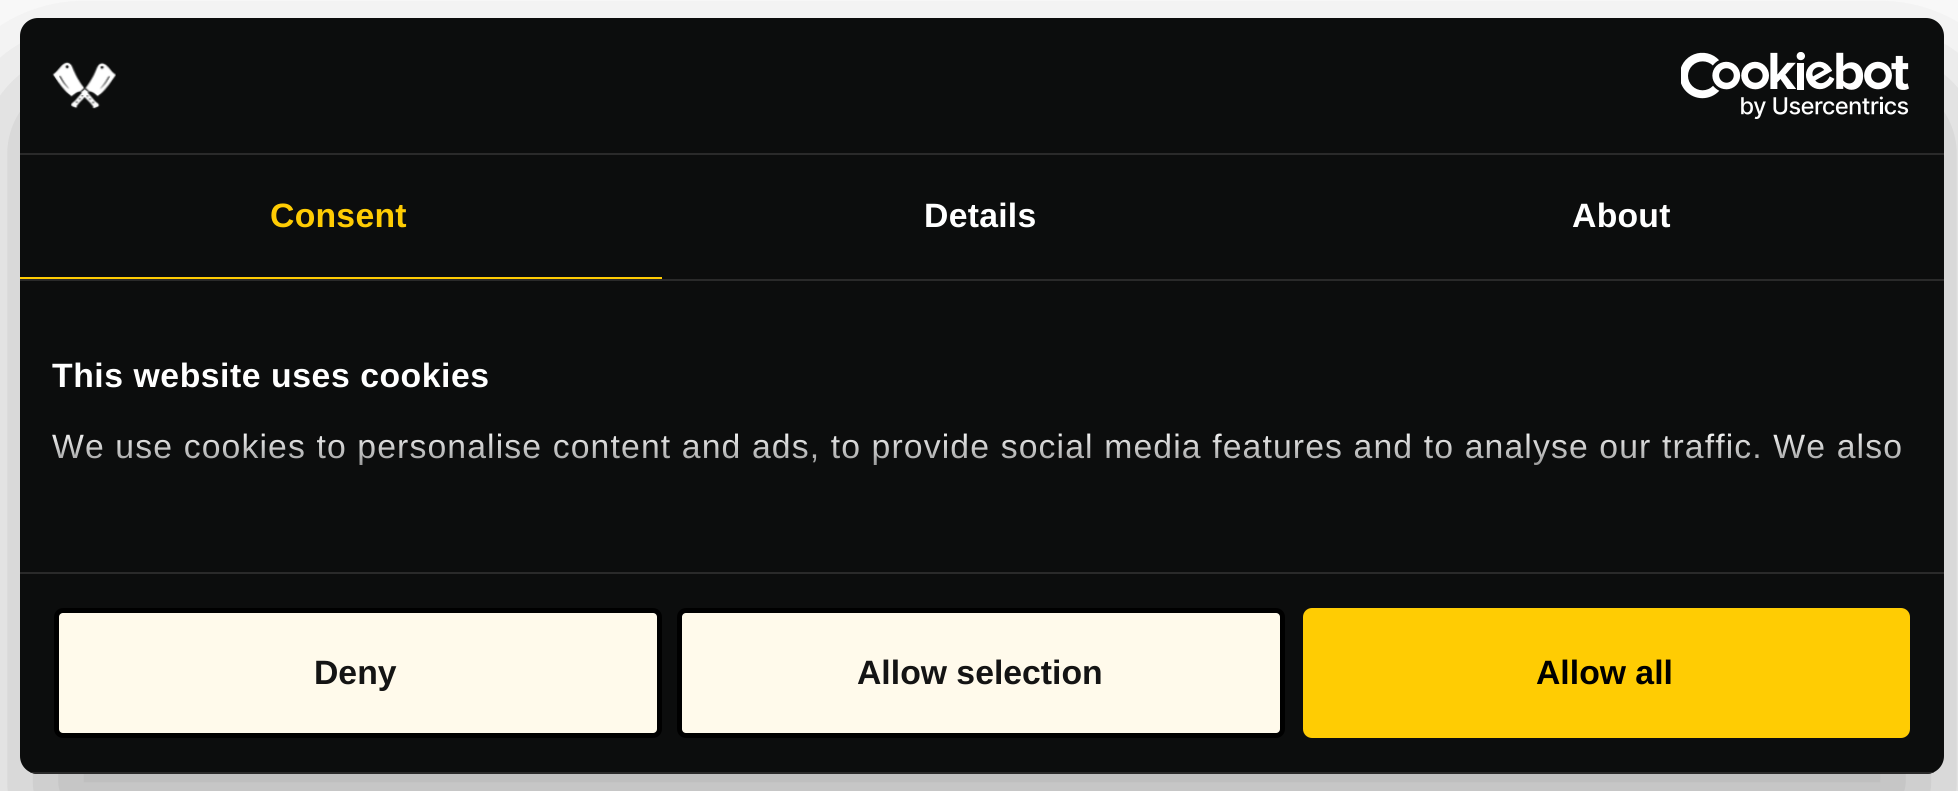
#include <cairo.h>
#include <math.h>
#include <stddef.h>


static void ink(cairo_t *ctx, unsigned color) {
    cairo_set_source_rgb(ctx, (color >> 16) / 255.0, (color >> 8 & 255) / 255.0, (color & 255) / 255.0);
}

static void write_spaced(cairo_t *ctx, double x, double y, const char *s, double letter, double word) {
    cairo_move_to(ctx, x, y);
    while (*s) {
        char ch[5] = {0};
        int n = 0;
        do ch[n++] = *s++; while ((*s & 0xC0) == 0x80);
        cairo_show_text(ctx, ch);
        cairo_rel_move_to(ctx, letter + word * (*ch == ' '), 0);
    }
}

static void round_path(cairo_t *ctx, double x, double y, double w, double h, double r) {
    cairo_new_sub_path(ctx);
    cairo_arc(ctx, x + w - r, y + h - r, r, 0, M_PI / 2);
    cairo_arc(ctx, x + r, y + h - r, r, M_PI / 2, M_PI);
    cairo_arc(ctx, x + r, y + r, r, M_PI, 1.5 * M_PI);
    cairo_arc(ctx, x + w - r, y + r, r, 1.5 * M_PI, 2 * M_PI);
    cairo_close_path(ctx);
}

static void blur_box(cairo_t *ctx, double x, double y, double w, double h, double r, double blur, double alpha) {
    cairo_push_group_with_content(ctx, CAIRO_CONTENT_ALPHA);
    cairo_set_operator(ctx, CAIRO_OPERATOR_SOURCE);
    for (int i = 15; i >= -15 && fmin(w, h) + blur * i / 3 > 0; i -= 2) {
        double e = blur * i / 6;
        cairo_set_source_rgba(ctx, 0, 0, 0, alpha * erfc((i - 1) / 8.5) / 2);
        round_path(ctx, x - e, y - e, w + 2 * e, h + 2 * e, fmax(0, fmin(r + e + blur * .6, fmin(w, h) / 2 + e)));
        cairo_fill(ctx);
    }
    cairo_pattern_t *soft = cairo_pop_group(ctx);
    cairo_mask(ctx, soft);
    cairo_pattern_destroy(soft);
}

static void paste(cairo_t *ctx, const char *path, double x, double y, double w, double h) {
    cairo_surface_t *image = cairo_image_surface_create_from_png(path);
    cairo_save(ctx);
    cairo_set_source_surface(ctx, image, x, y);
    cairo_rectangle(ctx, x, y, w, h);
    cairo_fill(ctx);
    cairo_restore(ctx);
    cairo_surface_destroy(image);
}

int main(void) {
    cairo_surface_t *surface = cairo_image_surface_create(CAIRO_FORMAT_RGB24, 1958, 791);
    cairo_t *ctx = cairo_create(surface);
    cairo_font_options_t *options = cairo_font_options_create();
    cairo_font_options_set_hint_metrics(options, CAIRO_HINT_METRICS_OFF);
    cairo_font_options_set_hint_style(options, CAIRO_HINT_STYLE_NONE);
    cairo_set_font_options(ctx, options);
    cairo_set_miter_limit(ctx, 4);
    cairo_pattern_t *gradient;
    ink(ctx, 0xFFFFFF);
    cairo_paint(ctx);
    ink(ctx, 0x000000);
    blur_box(ctx, 20, 90, 1924, 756, 18, 76.5, 0.3);
    ink(ctx, 0x0C0D0D);
    round_path(ctx, 20, 18, 1924, 756, 18);
    cairo_fill(ctx);
    ink(ctx, 0x2A2A2A);
    cairo_rectangle(ctx, 20, 153, 1924, 2);
    cairo_fill(ctx);
    paste(ctx, "media/1.png", 52, 61, 64, 48);
    paste(ctx, "media/2.png", 1681, 52, 228, 67);
    cairo_rectangle(ctx, 20, 279, 1924, 2);
    cairo_fill(ctx);
    ink(ctx, 0xFFCC03);
    cairo_rectangle(ctx, 20, 277, 642, 2);
    cairo_fill(ctx);
    cairo_select_font_face(ctx, "Liberation Sans", CAIRO_FONT_SLANT_NORMAL, CAIRO_FONT_WEIGHT_BOLD);
    cairo_set_font_size(ctx, 33.75);
    write_spaced(ctx, 270, 227, "Consent", 0.25, 0);
    ink(ctx, 0xFFFFFF);
    write_spaced(ctx, 924, 227, "Details", 0.25, 0);
    write_spaced(ctx, 1572, 227, "About", 0.25, 0);
    ink(ctx, 0x2A2A2A);
    cairo_rectangle(ctx, 20, 572, 1924, 2);
    cairo_fill(ctx);
    ink(ctx, 0xFFFFFF);
    write_spaced(ctx, 52, 387, "This website uses cookies", 0.55, 0);
    cairo_select_font_face(ctx, "Liberation Sans", CAIRO_FONT_SLANT_NORMAL, CAIRO_FONT_WEIGHT_NORMAL);
    write_spaced(ctx, 52, 458, "We use cookies to personalise content and ads, to provide social media features and to analyse our traffic. We also", 1.12, 0);
    gradient = cairo_pattern_create_linear(966, 572, 966, 428);
    cairo_pattern_add_color_stop_rgba(gradient, 0, 0.047, 0.051, 0.051, 1);
    cairo_pattern_add_color_stop_rgba(gradient, 0.5, 0.047, 0.051, 0.051, 0.8);
    cairo_pattern_add_color_stop_rgba(gradient, 1, 0.047, 0.051, 0.051, 0);
    cairo_set_source(ctx, gradient);
    cairo_pattern_destroy(gradient);
    cairo_rectangle(ctx, 52, 433, 1849, 32);
    cairo_fill(ctx);
    cairo_save(ctx);
    round_path(ctx, 20, 18, 1924, 756, 18);
    cairo_clip(ctx);
    ink(ctx, 0x2A2A2A);
    cairo_rectangle(ctx, 30, 772, 1904, 2);
    cairo_fill(ctx);
    cairo_restore(ctx);
    ink(ctx, 0xFFFAEB);
    round_path(ctx, 56.5, 610.5, 603, 125, 6.5);
    cairo_fill_preserve(ctx);
    ink(ctx, 0x000000);
    cairo_set_line_width(ctx, 5);
    cairo_stroke(ctx);
    cairo_select_font_face(ctx, "Liberation Sans", CAIRO_FONT_SLANT_NORMAL, CAIRO_FONT_WEIGHT_BOLD);
    ink(ctx, 0x141414);
    cairo_move_to(ctx, 314, 684);
    cairo_show_text(ctx, "Deny");
    ink(ctx, 0xFFFAEB);
    round_path(ctx, 679.5, 610.5, 603, 125, 6.5);
    cairo_fill_preserve(ctx);
    ink(ctx, 0x000000);
    cairo_stroke(ctx);
    ink(ctx, 0x141414);
    cairo_move_to(ctx, 857, 684);
    cairo_show_text(ctx, "Allow selection");
    ink(ctx, 0xFFCC03);
    round_path(ctx, 1305.5, 610.5, 602, 125, 6.5);
    cairo_fill_preserve(ctx);
    cairo_stroke(ctx);
    ink(ctx, 0x000000);
    cairo_move_to(ctx, 1536, 684);
    cairo_show_text(ctx, "Allow all");
    cairo_surface_write_to_png(surface, "image.png");
    cairo_font_options_destroy(options);
    cairo_destroy(ctx);
    cairo_surface_destroy(surface);
    return 0;
}
